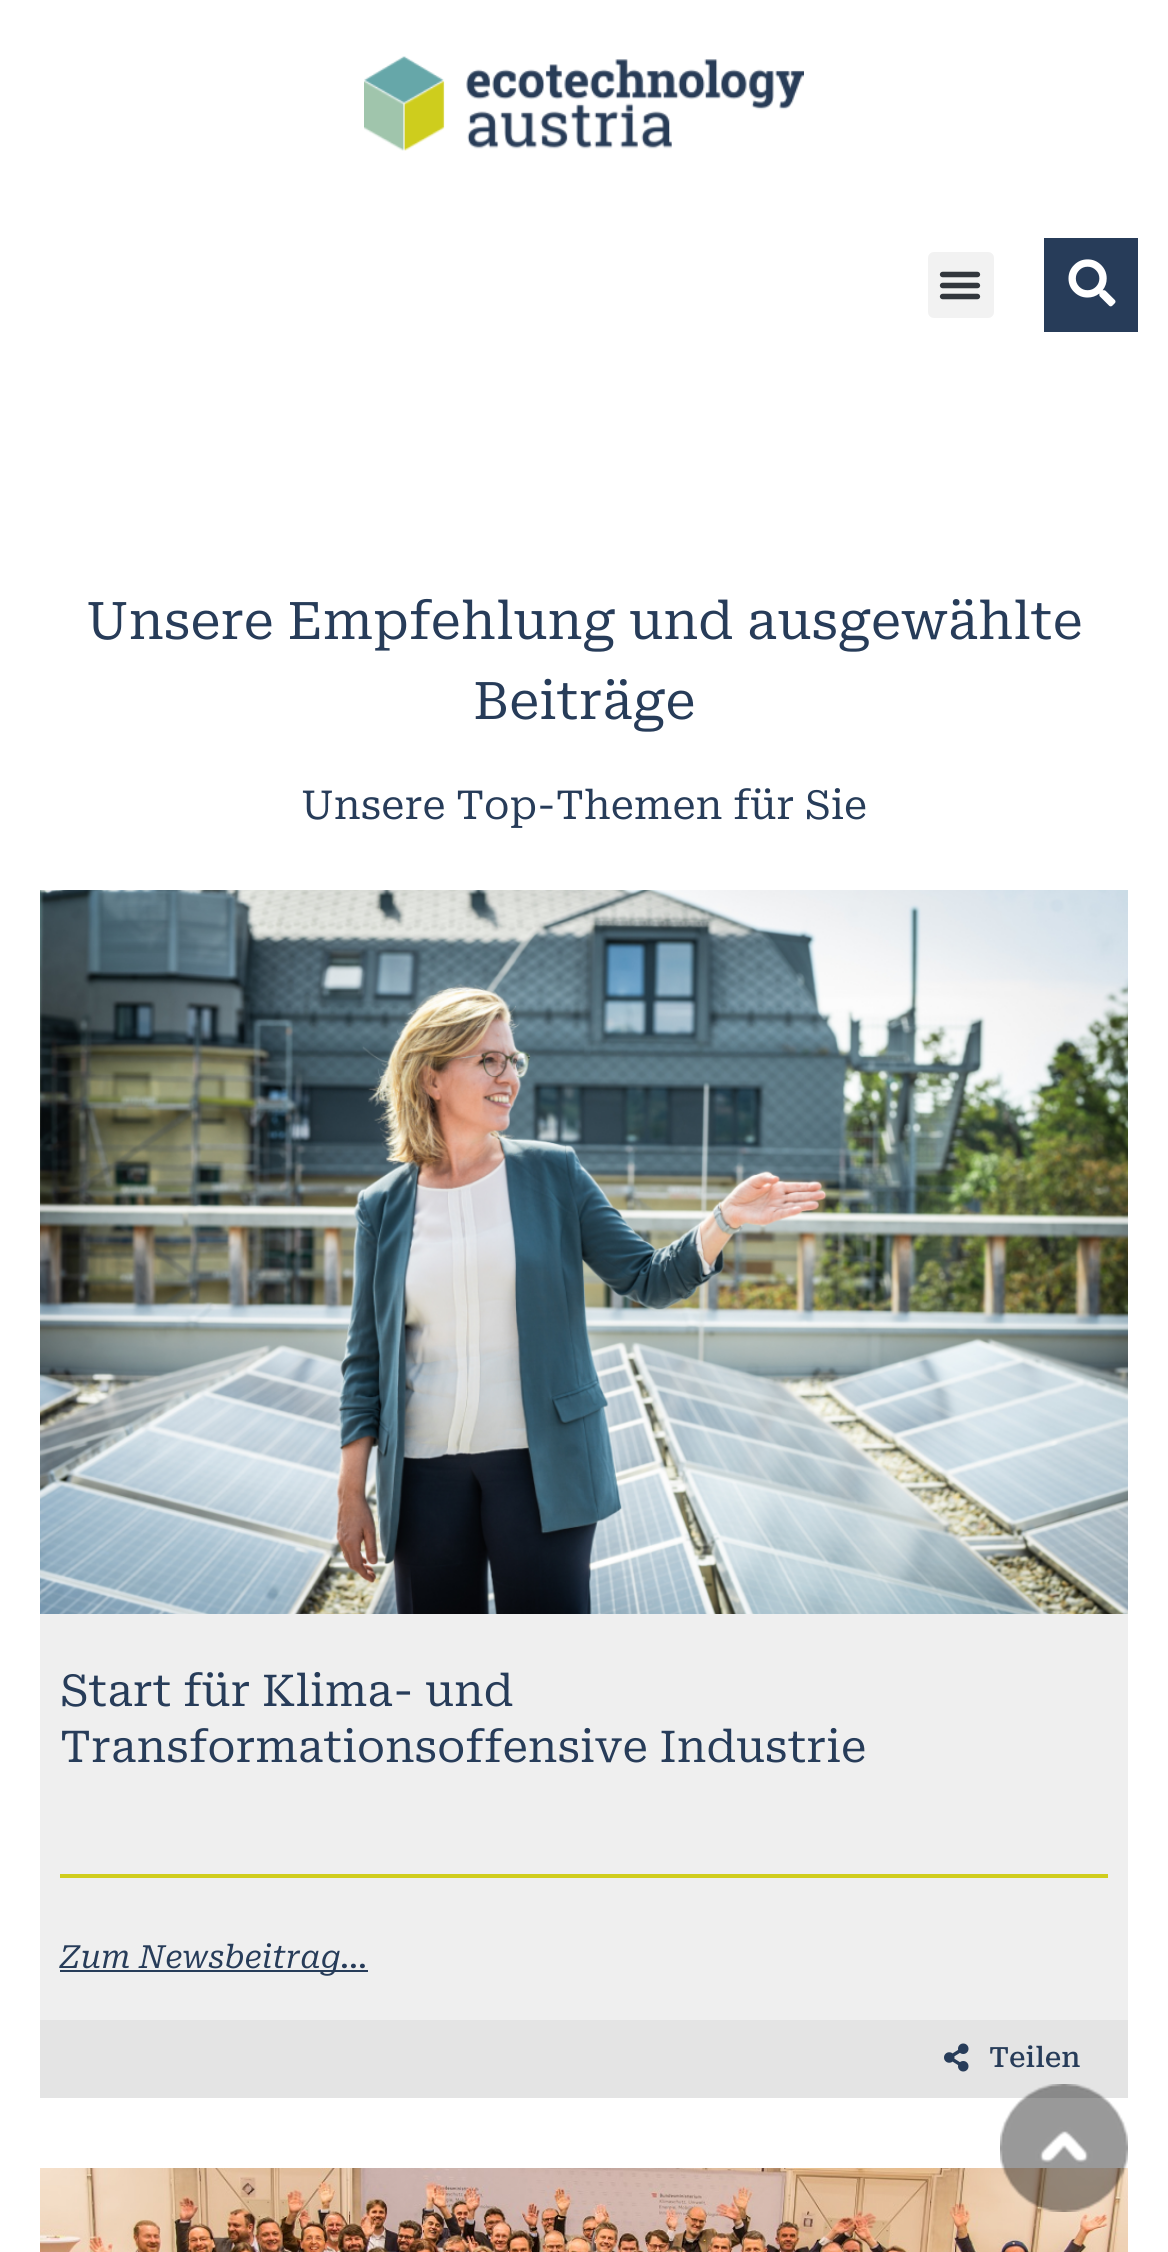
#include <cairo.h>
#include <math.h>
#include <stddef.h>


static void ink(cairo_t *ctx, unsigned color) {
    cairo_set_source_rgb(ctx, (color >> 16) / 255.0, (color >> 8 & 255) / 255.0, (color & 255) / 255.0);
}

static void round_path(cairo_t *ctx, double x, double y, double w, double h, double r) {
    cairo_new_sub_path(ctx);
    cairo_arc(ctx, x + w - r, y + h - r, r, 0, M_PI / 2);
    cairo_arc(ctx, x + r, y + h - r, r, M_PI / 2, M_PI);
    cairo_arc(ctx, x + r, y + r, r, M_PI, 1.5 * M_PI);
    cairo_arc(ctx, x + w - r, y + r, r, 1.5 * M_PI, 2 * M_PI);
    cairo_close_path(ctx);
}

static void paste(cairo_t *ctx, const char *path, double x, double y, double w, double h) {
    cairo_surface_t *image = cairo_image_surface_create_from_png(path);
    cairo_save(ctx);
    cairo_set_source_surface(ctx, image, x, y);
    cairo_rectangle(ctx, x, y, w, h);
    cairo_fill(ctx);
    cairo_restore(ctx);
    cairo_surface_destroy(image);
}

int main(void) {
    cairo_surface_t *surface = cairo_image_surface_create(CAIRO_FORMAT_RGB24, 1168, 2252);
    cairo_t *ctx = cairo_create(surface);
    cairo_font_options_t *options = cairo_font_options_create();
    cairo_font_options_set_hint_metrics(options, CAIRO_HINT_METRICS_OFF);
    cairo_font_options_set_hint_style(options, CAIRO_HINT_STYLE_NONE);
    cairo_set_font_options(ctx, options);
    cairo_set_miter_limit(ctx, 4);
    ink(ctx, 0xFFFFFF);
    cairo_paint(ctx);
    paste(ctx, "media/1.png", 364, 56, 440, 95);
    ink(ctx, 0xF2F2F2);
    round_path(ctx, 928, 252, 66, 66, 6);
    cairo_fill(ctx);
    paste(ctx, "media/2.png", 939, 271, 42, 29);
    ink(ctx, 0x273C59);
    cairo_rectangle(ctx, 1044, 238, 94, 94);
    cairo_fill(ctx);
    paste(ctx, "media/3.png", 1068, 259, 48, 48);
    cairo_select_font_face(ctx, "Roboto Serif", CAIRO_FONT_SLANT_NORMAL, CAIRO_FONT_WEIGHT_NORMAL);
    cairo_set_font_size(ctx, 52);
    cairo_move_to(ctx, 86, 639);
    cairo_show_text(ctx, "Unsere Empfehlung und ausgewählte");
    cairo_move_to(ctx, 473, 719);
    cairo_show_text(ctx, "Beiträge");
    cairo_set_font_size(ctx, 40);
    cairo_move_to(ctx, 301, 819);
    cairo_show_text(ctx, "Unsere Top-Themen für Sie");
    ink(ctx, 0xEFEFEF);
    cairo_rectangle(ctx, 40, 1614, 1088, 406);
    cairo_fill(ctx);
    paste(ctx, "media/4.png", 40, 890, 1088, 724);
    cairo_set_font_size(ctx, 44);
    ink(ctx, 0x273C59);
    cairo_move_to(ctx, 60, 1706);
    cairo_show_text(ctx, "Start für Klima- und");
    cairo_move_to(ctx, 60, 1762);
    cairo_show_text(ctx, "Transformationsoffensive Industrie");
    ink(ctx, 0xD0CD1D);
    cairo_rectangle(ctx, 60, 1874, 1048, 4);
    cairo_fill(ctx);
    ink(ctx, 0x273C59);
    cairo_rectangle(ctx, 60, 1970, 308, 2);
    cairo_fill(ctx);
    cairo_select_font_face(ctx, "Roboto Serif", CAIRO_FONT_SLANT_ITALIC, CAIRO_FONT_WEIGHT_NORMAL);
    cairo_set_font_size(ctx, 32);
    cairo_move_to(ctx, 60, 1968);
    cairo_show_text(ctx, "Zum Newsbeitrag...");
    ink(ctx, 0xE4E4E4);
    cairo_rectangle(ctx, 40, 2020, 1088, 78);
    cairo_fill(ctx);
    paste(ctx, "media/5.png", 944, 2043, 25, 29);
    cairo_select_font_face(ctx, "Roboto Serif Medium", CAIRO_FONT_SLANT_NORMAL, CAIRO_FONT_WEIGHT_NORMAL);
    cairo_set_font_size(ctx, 28);
    ink(ctx, 0x273C59);
    cairo_move_to(ctx, 989, 2067);
    cairo_show_text(ctx, "Teilen");
    paste(ctx, "media/6.png", 40, 2168, 1088, 84);
    paste(ctx, "media/7.png", 1000, 2084, 128, 128);
    cairo_surface_write_to_png(surface, "image.png");
    cairo_font_options_destroy(options);
    cairo_destroy(ctx);
    cairo_surface_destroy(surface);
    return 0;
}
